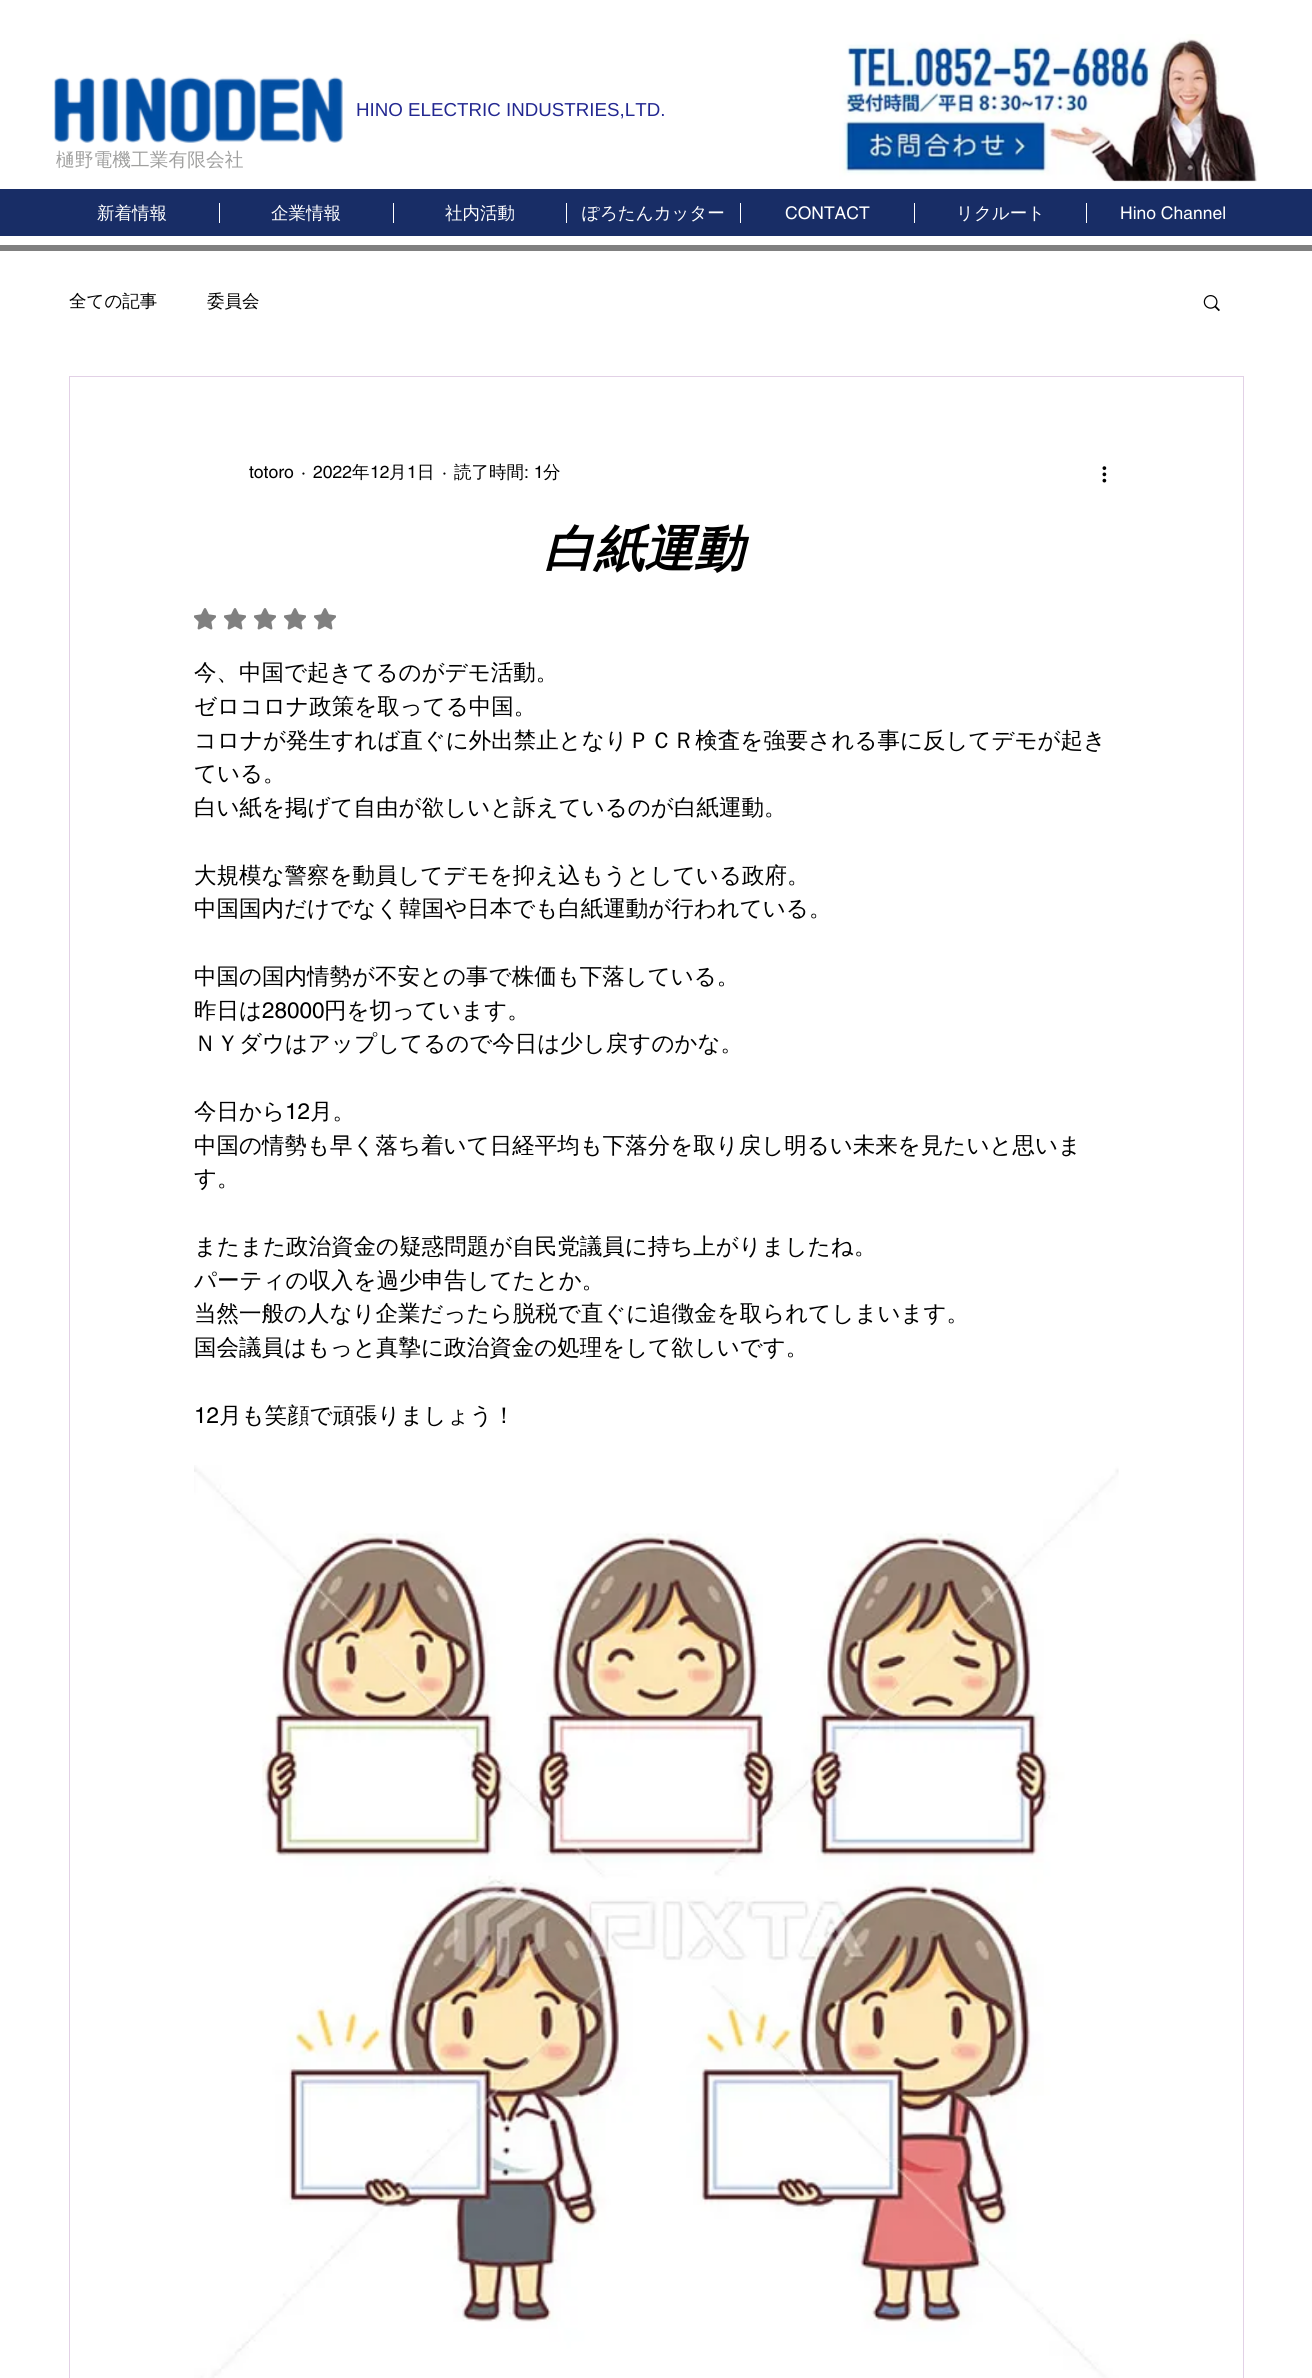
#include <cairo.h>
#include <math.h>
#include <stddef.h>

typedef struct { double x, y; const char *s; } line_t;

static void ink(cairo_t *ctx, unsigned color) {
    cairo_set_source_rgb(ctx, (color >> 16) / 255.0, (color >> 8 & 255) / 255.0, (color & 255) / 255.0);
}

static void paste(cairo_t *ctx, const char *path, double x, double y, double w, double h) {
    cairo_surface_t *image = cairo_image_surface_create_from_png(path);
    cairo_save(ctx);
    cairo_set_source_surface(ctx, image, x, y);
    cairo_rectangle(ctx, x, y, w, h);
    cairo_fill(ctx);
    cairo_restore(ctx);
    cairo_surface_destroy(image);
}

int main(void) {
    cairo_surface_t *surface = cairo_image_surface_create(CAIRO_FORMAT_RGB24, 1312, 2378);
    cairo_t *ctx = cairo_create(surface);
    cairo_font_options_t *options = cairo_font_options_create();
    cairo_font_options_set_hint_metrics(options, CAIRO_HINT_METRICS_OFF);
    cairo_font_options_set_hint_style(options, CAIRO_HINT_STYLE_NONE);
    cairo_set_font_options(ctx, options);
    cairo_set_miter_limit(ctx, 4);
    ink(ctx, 0xFFFFFF);
    cairo_paint(ctx);
    paste(ctx, "media/1.png", 54, 76, 289, 67);
    cairo_select_font_face(ctx, "Liberation Sans", CAIRO_FONT_SLANT_NORMAL, CAIRO_FONT_WEIGHT_NORMAL);
    cairo_set_font_size(ctx, 18.75);
    ink(ctx, 0x232891);
    cairo_move_to(ctx, 356, 116);
    cairo_show_text(ctx, "HINO ELECTRIC INDUSTRIES,LTD.");
    paste(ctx, "media/2.png", 839, 34, 419, 148);
    cairo_select_font_face(ctx, "WenQuanYi Zen Hei Medium", CAIRO_FONT_SLANT_NORMAL, CAIRO_FONT_WEIGHT_NORMAL);
    ink(ctx, 0xA0A09F);
    cairo_move_to(ctx, 56, 166);
    cairo_show_text(ctx, "樋野電機工業有限会社");
    ink(ctx, 0x182D66);
    cairo_rectangle(ctx, 0, 189, 1312, 47);
    cairo_fill(ctx);
    cairo_set_font_size(ctx, 17.5);
    ink(ctx, 0xFFFFFF);
    cairo_move_to(ctx, 97, 219);
    cairo_show_text(ctx, "新着情報");
    cairo_rectangle(ctx, 219, 203, 1, 20);
    cairo_fill(ctx);
    cairo_move_to(ctx, 271, 219);
    cairo_show_text(ctx, "企業情報");
    cairo_rectangle(ctx, 393, 203, 1, 20);
    cairo_fill(ctx);
    cairo_move_to(ctx, 445, 219);
    cairo_show_text(ctx, "社内活動");
    cairo_rectangle(ctx, 566, 203, 1, 20);
    cairo_fill(ctx);
    cairo_move_to(ctx, 582, 219);
    cairo_show_text(ctx, "ぽろたんカッター");
    cairo_rectangle(ctx, 740, 203, 1, 20);
    cairo_fill(ctx);
    cairo_select_font_face(ctx, "helvetica", CAIRO_FONT_SLANT_NORMAL, CAIRO_FONT_WEIGHT_NORMAL);
    cairo_move_to(ctx, 785, 219);
    cairo_show_text(ctx, "CONTACT");
    cairo_rectangle(ctx, 914, 203, 1, 20);
    cairo_fill(ctx);
    cairo_select_font_face(ctx, "WenQuanYi Zen Hei Medium", CAIRO_FONT_SLANT_NORMAL, CAIRO_FONT_WEIGHT_NORMAL);
    cairo_move_to(ctx, 956, 219);
    cairo_show_text(ctx, "リクルート");
    cairo_rectangle(ctx, 1086, 203, 1, 20);
    cairo_fill(ctx);
    cairo_select_font_face(ctx, "helvetica", CAIRO_FONT_SLANT_NORMAL, CAIRO_FONT_WEIGHT_NORMAL);
    cairo_move_to(ctx, 1120, 219);
    cairo_show_text(ctx, "Hino Channel");
    ink(ctx, 0x808080);
    cairo_rectangle(ctx, 0, 245, 1312, 6);
    cairo_fill(ctx);
    cairo_select_font_face(ctx, "WenQuanYi Zen Hei Medium", CAIRO_FONT_SLANT_NORMAL, CAIRO_FONT_WEIGHT_NORMAL);
    ink(ctx, 0x000000);
    cairo_move_to(ctx, 69, 307);
    cairo_show_text(ctx, "全ての記事");
    cairo_move_to(ctx, 207, 307);
    cairo_show_text(ctx, "委員会");
    paste(ctx, "media/3.png", 1203, 295, 17, 17);
    cairo_rectangle(ctx, 69.5, 376.5, 1174, 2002);
    ink(ctx, 0xE2D1E6);
    cairo_set_line_width(ctx, 1);
    cairo_stroke(ctx);
    cairo_select_font_face(ctx, "helvetica", CAIRO_FONT_SLANT_NORMAL, CAIRO_FONT_WEIGHT_NORMAL);
    ink(ctx, 0x000000);
    {
        static const line_t items[] = {
            {249, 478, "totoro"},
            {301, 478, "·"},
            {313, 478, "2022"},
        };
        for (size_t i = 0; i < sizeof items / sizeof *items; i++) {
            cairo_move_to(ctx, items[i].x, items[i].y);
            cairo_show_text(ctx, items[i].s);
        }
    }
    cairo_select_font_face(ctx, "WenQuanYi Zen Hei Medium", CAIRO_FONT_SLANT_NORMAL, CAIRO_FONT_WEIGHT_NORMAL);
    cairo_move_to(ctx, 352, 478);
    cairo_show_text(ctx, "年");
    cairo_select_font_face(ctx, "helvetica", CAIRO_FONT_SLANT_NORMAL, CAIRO_FONT_WEIGHT_NORMAL);
    cairo_move_to(ctx, 370, 478);
    cairo_show_text(ctx, "12");
    cairo_select_font_face(ctx, "WenQuanYi Zen Hei Medium", CAIRO_FONT_SLANT_NORMAL, CAIRO_FONT_WEIGHT_NORMAL);
    cairo_move_to(ctx, 389, 478);
    cairo_show_text(ctx, "月");
    cairo_select_font_face(ctx, "helvetica", CAIRO_FONT_SLANT_NORMAL, CAIRO_FONT_WEIGHT_NORMAL);
    cairo_move_to(ctx, 407, 478);
    cairo_show_text(ctx, "1");
    cairo_select_font_face(ctx, "WenQuanYi Zen Hei Medium", CAIRO_FONT_SLANT_NORMAL, CAIRO_FONT_WEIGHT_NORMAL);
    cairo_move_to(ctx, 417, 478);
    cairo_show_text(ctx, "日");
    cairo_select_font_face(ctx, "helvetica", CAIRO_FONT_SLANT_NORMAL, CAIRO_FONT_WEIGHT_NORMAL);
    cairo_move_to(ctx, 442, 478);
    cairo_show_text(ctx, "·");
    cairo_select_font_face(ctx, "WenQuanYi Zen Hei Medium", CAIRO_FONT_SLANT_NORMAL, CAIRO_FONT_WEIGHT_NORMAL);
    cairo_move_to(ctx, 454, 478);
    cairo_show_text(ctx, "読了時間");
    cairo_select_font_face(ctx, "helvetica", CAIRO_FONT_SLANT_NORMAL, CAIRO_FONT_WEIGHT_NORMAL);
    cairo_move_to(ctx, 524, 478);
    cairo_show_text(ctx, ": 1");
    cairo_select_font_face(ctx, "WenQuanYi Zen Hei Medium", CAIRO_FONT_SLANT_NORMAL, CAIRO_FONT_WEIGHT_NORMAL);
    cairo_move_to(ctx, 543, 478);
    cairo_show_text(ctx, "分");
    paste(ctx, "media/4.png", 1102, 466, 5, 17);
    cairo_select_font_face(ctx, "WenQuanYi Zen Hei", CAIRO_FONT_SLANT_ITALIC, CAIRO_FONT_WEIGHT_BOLD);
    cairo_set_font_size(ctx, 50);
    cairo_move_to(ctx, 544, 566);
    cairo_show_text(ctx, "白紙運動");
    paste(ctx, "media/5.png", 194, 608, 22, 22);
    paste(ctx, "media/5.png", 224, 608, 22, 22);
    paste(ctx, "media/5.png", 254, 608, 22, 22);
    paste(ctx, "media/5.png", 284, 608, 22, 22);
    paste(ctx, "media/5.png", 314, 608, 22, 22);
    cairo_select_font_face(ctx, "WenQuanYi Zen Hei Medium", CAIRO_FONT_SLANT_NORMAL, CAIRO_FONT_WEIGHT_NORMAL);
    cairo_set_font_size(ctx, 22.5);
    {
        static const line_t items[] = {
            {194, 680, "今、中国で起きてるのがデモ活動。"},
            {194, 714, "ゼロコロナ政策を取ってる中国。"},
            {194, 748, "コロナが発生すれば直ぐに外出禁止となりＰＣＲ検査を強要される事に反してデモが起き"},
            {194, 781, "ている。"},
            {194, 815, "白い紙を掲げて自由が欲しいと訴えているのが白紙運動。"},
            {194, 883, "大規模な警察を動員してデモを抑え込もうとしている政府。"},
            {194, 916, "中国国内だけでなく韓国や日本でも白紙運動が行われている。"},
            {194, 984, "中国の国内情勢が不安との事で株価も下落している。"},
            {194, 1018, "昨日は"},
        };
        for (size_t i = 0; i < sizeof items / sizeof *items; i++) {
            cairo_move_to(ctx, items[i].x, items[i].y);
            cairo_show_text(ctx, items[i].s);
        }
    }
    cairo_select_font_face(ctx, "helvetica", CAIRO_FONT_SLANT_NORMAL, CAIRO_FONT_WEIGHT_NORMAL);
    cairo_move_to(ctx, 262, 1018);
    cairo_show_text(ctx, "28000");
    cairo_select_font_face(ctx, "WenQuanYi Zen Hei Medium", CAIRO_FONT_SLANT_NORMAL, CAIRO_FONT_WEIGHT_NORMAL);
    {
        static const line_t items[] = {
            {324, 1018, "円を切っています。"},
            {194, 1051, "ＮＹダウはアップしてるので今日は少し戻すのかな。"},
            {194, 1119, "今日から"},
        };
        for (size_t i = 0; i < sizeof items / sizeof *items; i++) {
            cairo_move_to(ctx, items[i].x, items[i].y);
            cairo_show_text(ctx, items[i].s);
        }
    }
    cairo_select_font_face(ctx, "helvetica", CAIRO_FONT_SLANT_NORMAL, CAIRO_FONT_WEIGHT_NORMAL);
    cairo_move_to(ctx, 285, 1119);
    cairo_show_text(ctx, "12");
    cairo_select_font_face(ctx, "WenQuanYi Zen Hei Medium", CAIRO_FONT_SLANT_NORMAL, CAIRO_FONT_WEIGHT_NORMAL);
    {
        static const line_t items[] = {
            {310, 1119, "月。"},
            {194, 1153, "中国の情勢も早く落ち着いて日経平均も下落分を取り戻し明るい未来を見たいと思いま"},
            {194, 1186, "す。"},
            {194, 1254, "またまた政治資金の疑惑問題が自民党議員に持ち上がりましたね。"},
            {194, 1288, "パーティの収入を過少申告してたとか。"},
            {194, 1321, "当然一般の人なり企業だったら脱税で直ぐに追徴金を取られてしまいます。"},
            {194, 1355, "国会議員はもっと真摯に政治資金の処理をして欲しいです。"},
        };
        for (size_t i = 0; i < sizeof items / sizeof *items; i++) {
            cairo_move_to(ctx, items[i].x, items[i].y);
            cairo_show_text(ctx, items[i].s);
        }
    }
    cairo_select_font_face(ctx, "helvetica", CAIRO_FONT_SLANT_NORMAL, CAIRO_FONT_WEIGHT_NORMAL);
    cairo_move_to(ctx, 194, 1423);
    cairo_show_text(ctx, "12");
    cairo_select_font_face(ctx, "WenQuanYi Zen Hei Medium", CAIRO_FONT_SLANT_NORMAL, CAIRO_FONT_WEIGHT_NORMAL);
    cairo_move_to(ctx, 219, 1423);
    cairo_show_text(ctx, "月も笑顔で頑張りましょう！");
    paste(ctx, "media/6.png", 194, 1465, 925, 913);
    cairo_surface_write_to_png(surface, "image.png");
    cairo_font_options_destroy(options);
    cairo_destroy(ctx);
    cairo_surface_destroy(surface);
    return 0;
}
